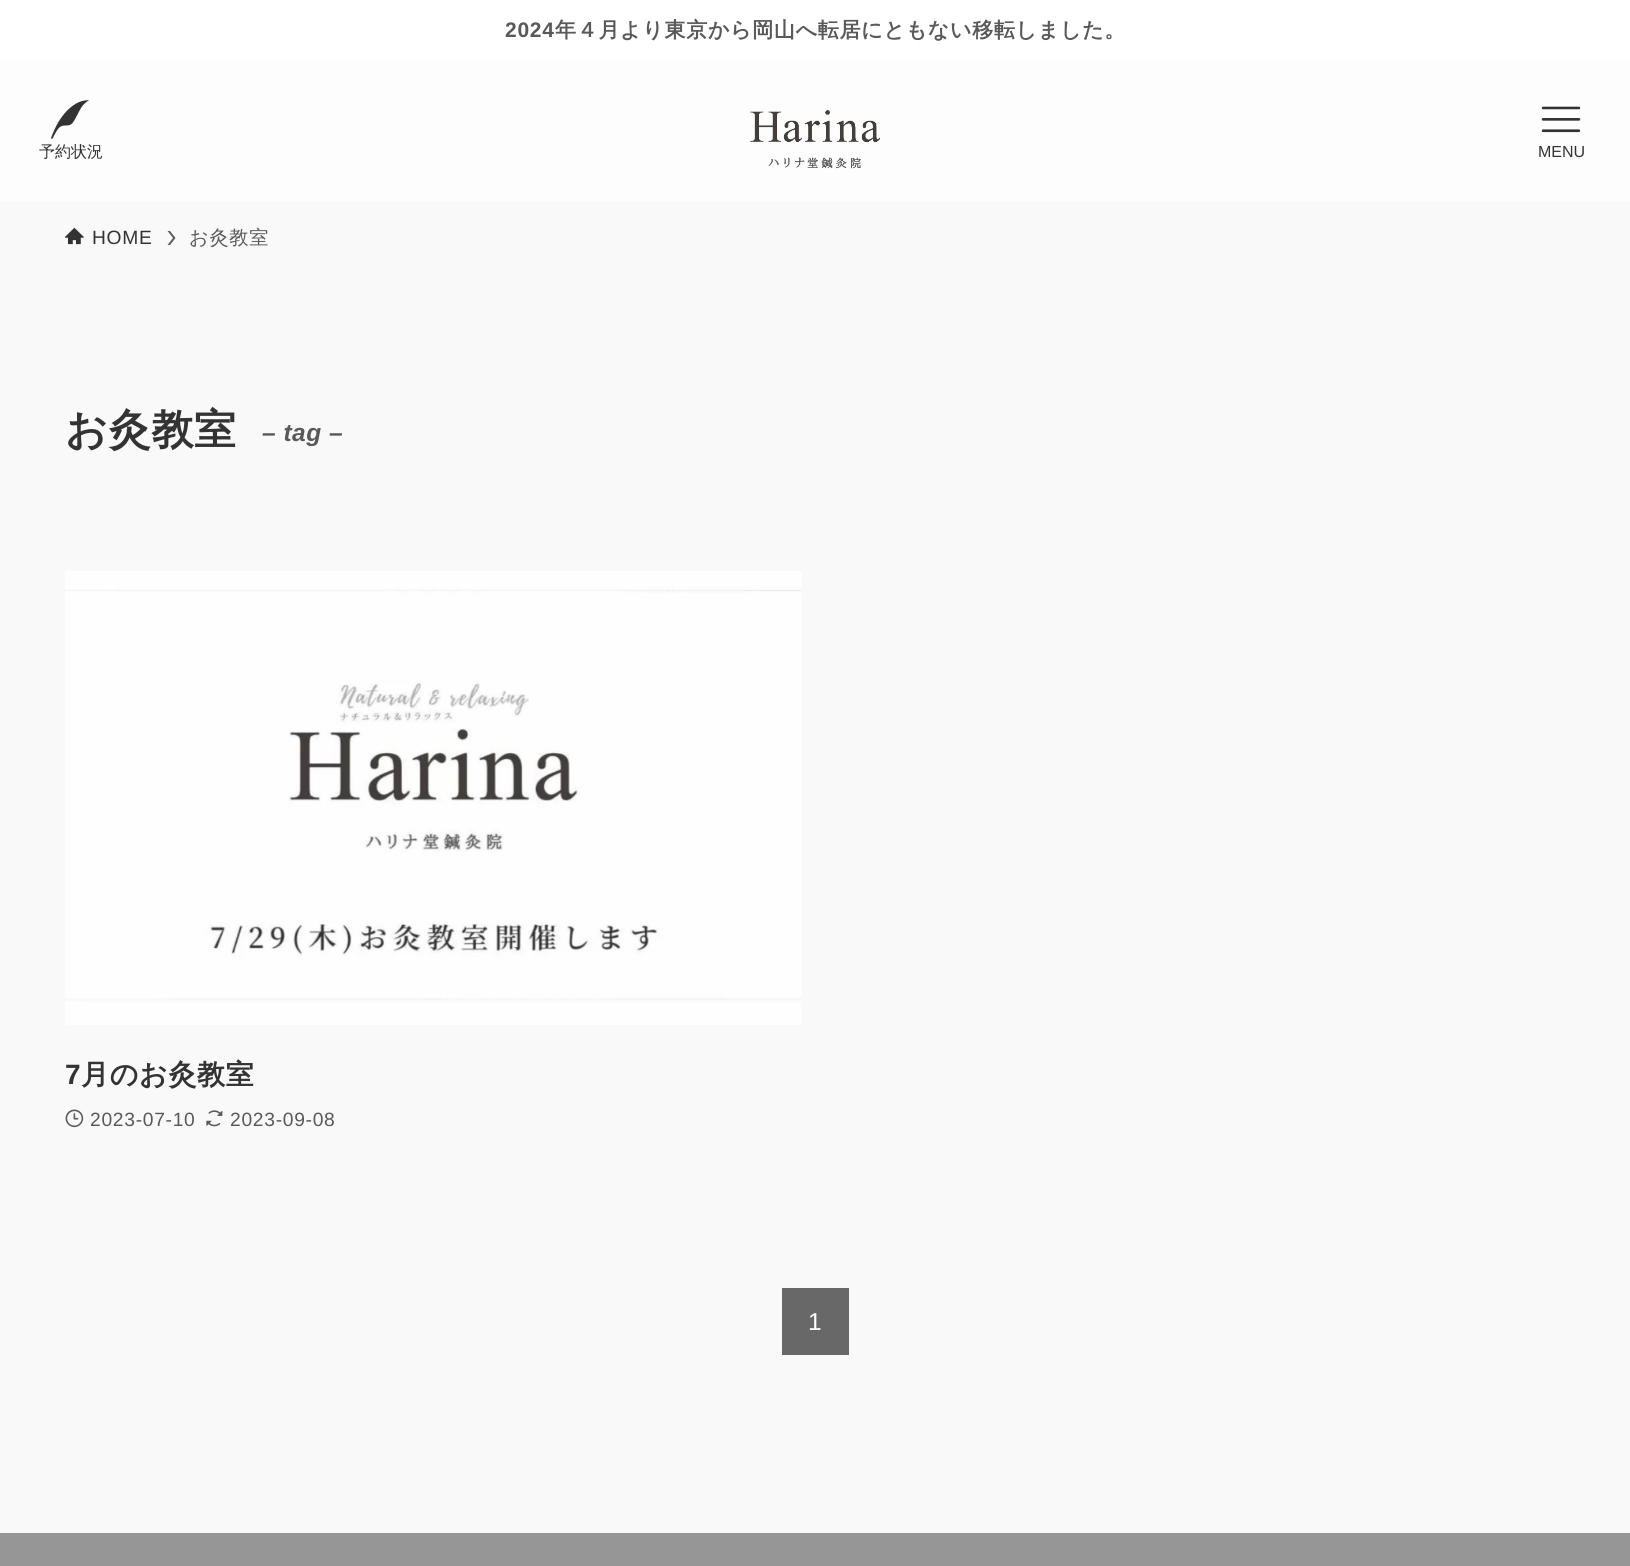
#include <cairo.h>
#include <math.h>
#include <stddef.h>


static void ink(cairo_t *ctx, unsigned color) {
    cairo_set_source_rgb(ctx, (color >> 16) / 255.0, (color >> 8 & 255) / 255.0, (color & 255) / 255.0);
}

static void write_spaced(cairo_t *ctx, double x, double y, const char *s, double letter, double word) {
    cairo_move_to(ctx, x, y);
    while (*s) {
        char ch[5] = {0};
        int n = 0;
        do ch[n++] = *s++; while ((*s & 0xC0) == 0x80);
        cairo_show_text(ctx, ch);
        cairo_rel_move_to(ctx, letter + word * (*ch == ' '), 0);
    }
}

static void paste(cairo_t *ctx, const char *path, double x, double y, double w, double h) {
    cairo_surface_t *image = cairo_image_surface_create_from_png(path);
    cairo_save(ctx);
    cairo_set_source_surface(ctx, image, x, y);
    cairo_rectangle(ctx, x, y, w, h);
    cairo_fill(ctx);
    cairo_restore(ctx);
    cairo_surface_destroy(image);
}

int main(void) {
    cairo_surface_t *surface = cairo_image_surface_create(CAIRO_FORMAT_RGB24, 1630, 1566);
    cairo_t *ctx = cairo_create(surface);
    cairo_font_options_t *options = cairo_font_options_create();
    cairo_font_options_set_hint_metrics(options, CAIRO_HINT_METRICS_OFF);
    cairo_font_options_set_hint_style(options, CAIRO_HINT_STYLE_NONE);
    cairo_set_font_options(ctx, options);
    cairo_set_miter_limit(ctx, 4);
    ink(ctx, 0xF9F9F9);
    cairo_paint(ctx);
    ink(ctx, 0xFFFFFF);
    cairo_rectangle(ctx, 0, 0, 1630, 61);
    cairo_fill(ctx);
    cairo_select_font_face(ctx, "Liberation Sans", CAIRO_FONT_SLANT_NORMAL, CAIRO_FONT_WEIGHT_BOLD);
    cairo_set_font_size(ctx, 21);
    ink(ctx, 0x595959);
    write_spaced(ctx, 505, 37, "2024", 0.7, 0);
    cairo_select_font_face(ctx, "WenQuanYi Zen Hei", CAIRO_FONT_SLANT_NORMAL, CAIRO_FONT_WEIGHT_BOLD);
    write_spaced(ctx, 555, 37, "年４月より東京から岡山へ転居にともない移転しました。", 0.7, 0);
    ink(ctx, 0xFDFDFD);
    cairo_rectangle(ctx, 0, 61, 1630, 140);
    cairo_fill(ctx);
    paste(ctx, "media/1.png", 50, 100, 39, 39);
    cairo_select_font_face(ctx, "WenQuanYi Zen Hei Medium", CAIRO_FONT_SLANT_NORMAL, CAIRO_FONT_WEIGHT_NORMAL);
    cairo_set_font_size(ctx, 16);
    ink(ctx, 0x333333);
    cairo_move_to(ctx, 39, 157);
    cairo_show_text(ctx, "予約状況");
    paste(ctx, "media/2.png", 750, 110, 130, 59);
    paste(ctx, "media/3.png", 1541, 106, 40, 27);
    cairo_select_font_face(ctx, "Liberation Sans", CAIRO_FONT_SLANT_NORMAL, CAIRO_FONT_WEIGHT_NORMAL);
    cairo_move_to(ctx, 1538, 157);
    cairo_show_text(ctx, "MENU");
    paste(ctx, "media/4.png", 64, 227, 20, 18);
    cairo_set_font_size(ctx, 19.25);
    write_spaced(ctx, 92, 244, "HOME", 0.7, 0);
    ink(ctx, 0x5B5B5B);
    cairo_new_path(ctx);
    cairo_move_to(ctx, 170, 231);
    cairo_line_to(ctx, 167.5, 231);
    cairo_line_to(ctx, 173, 238);
    cairo_line_to(ctx, 167.5, 245);
    cairo_line_to(ctx, 170, 245);
    cairo_line_to(ctx, 175.5, 238);
    cairo_close_path(ctx);
    cairo_fill(ctx);
    cairo_select_font_face(ctx, "WenQuanYi Zen Hei Medium", CAIRO_FONT_SLANT_NORMAL, CAIRO_FONT_WEIGHT_NORMAL);
    ink(ctx, 0x595959);
    write_spaced(ctx, 189, 244, "お灸教室", 0.7, 0);
    cairo_select_font_face(ctx, "WenQuanYi Zen Hei", CAIRO_FONT_SLANT_NORMAL, CAIRO_FONT_WEIGHT_BOLD);
    cairo_set_font_size(ctx, 42);
    ink(ctx, 0x333333);
    write_spaced(ctx, 65, 444, "お灸教室", 0.7, 0);
    cairo_select_font_face(ctx, "Liberation Sans", CAIRO_FONT_SLANT_ITALIC, CAIRO_FONT_WEIGHT_BOLD);
    cairo_set_font_size(ctx, 24.5);
    ink(ctx, 0x595959);
    write_spaced(ctx, 262, 441, "– tag –", 0.5, 0);
    paste(ctx, "media/5.png", 65, 571, 737, 454);
    cairo_select_font_face(ctx, "Liberation Sans", CAIRO_FONT_SLANT_NORMAL, CAIRO_FONT_WEIGHT_BOLD);
    cairo_set_font_size(ctx, 28);
    ink(ctx, 0x333333);
    write_spaced(ctx, 65, 1084, "7", 0.7, 0);
    cairo_select_font_face(ctx, "WenQuanYi Zen Hei", CAIRO_FONT_SLANT_NORMAL, CAIRO_FONT_WEIGHT_BOLD);
    write_spaced(ctx, 81, 1084, "月のお灸教室", 0.7, 0);
    paste(ctx, "media/6.png", 65, 1109, 19, 19);
    cairo_select_font_face(ctx, "Liberation Sans", CAIRO_FONT_SLANT_NORMAL, CAIRO_FONT_WEIGHT_NORMAL);
    cairo_set_font_size(ctx, 19.25);
    ink(ctx, 0x595959);
    write_spaced(ctx, 90, 1126, "2023-07-10", 0.7, 0);
    paste(ctx, "media/7.png", 206, 1110, 17, 17);
    write_spaced(ctx, 230, 1126, "2023-09-08", 0.7, 0);
    ink(ctx, 0x686868);
    cairo_rectangle(ctx, 782, 1288, 67, 67);
    cairo_fill(ctx);
    cairo_set_font_size(ctx, 24.5);
    ink(ctx, 0xFFFFFF);
    write_spaced(ctx, 808, 1330, "1", 0.7, 0);
    ink(ctx, 0x969696);
    cairo_rectangle(ctx, 0, 1533, 1630, 33);
    cairo_fill(ctx);
    cairo_surface_write_to_png(surface, "image.png");
    cairo_font_options_destroy(options);
    cairo_destroy(ctx);
    cairo_surface_destroy(surface);
    return 0;
}
